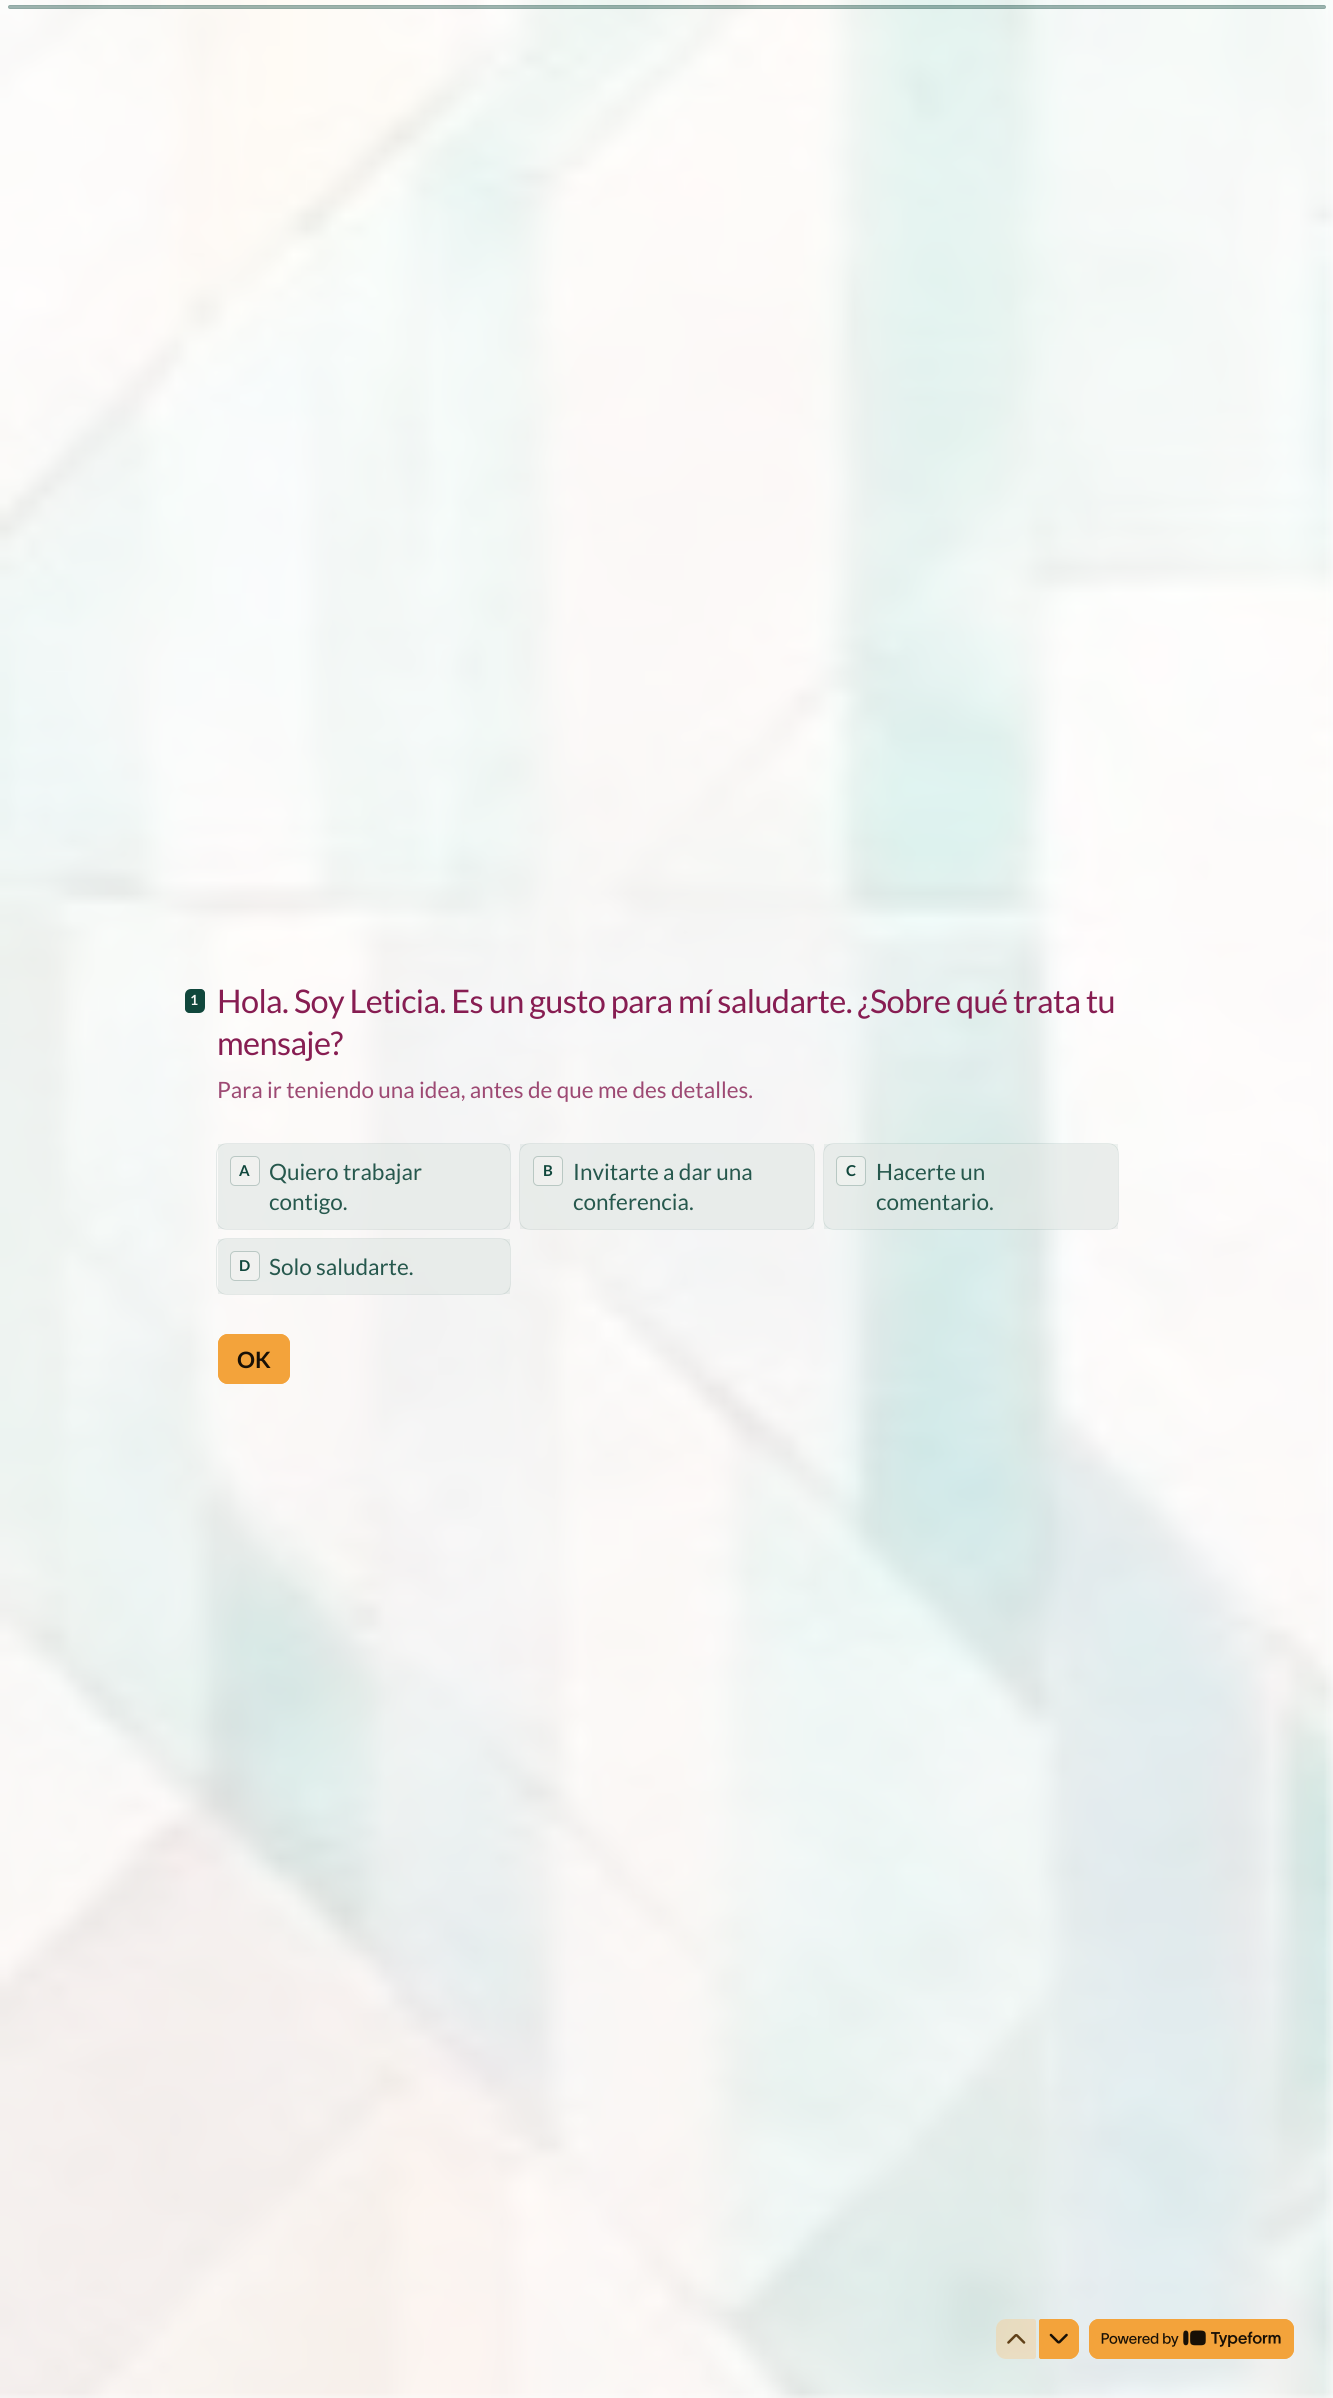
#include <cairo.h>
#include <math.h>
#include <stddef.h>


static void ink(cairo_t *ctx, unsigned color) {
    cairo_set_source_rgb(ctx, (color >> 16) / 255.0, (color >> 8 & 255) / 255.0, (color & 255) / 255.0);
}

static void write_spaced(cairo_t *ctx, double x, double y, const char *s, double letter, double word) {
    cairo_move_to(ctx, x, y);
    while (*s) {
        char ch[5] = {0};
        int n = 0;
        do ch[n++] = *s++; while ((*s & 0xC0) == 0x80);
        cairo_show_text(ctx, ch);
        cairo_rel_move_to(ctx, letter + word * (*ch == ' '), 0);
    }
}

static void round_path(cairo_t *ctx, double x, double y, double w, double h, double r) {
    cairo_new_sub_path(ctx);
    cairo_arc(ctx, x + w - r, y + h - r, r, 0, M_PI / 2);
    cairo_arc(ctx, x + r, y + h - r, r, M_PI / 2, M_PI);
    cairo_arc(ctx, x + r, y + r, r, M_PI, 1.5 * M_PI);
    cairo_arc(ctx, x + w - r, y + r, r, 1.5 * M_PI, 2 * M_PI);
    cairo_close_path(ctx);
}

static void paste(cairo_t *ctx, const char *path, double x, double y, double w, double h) {
    cairo_surface_t *image = cairo_image_surface_create_from_png(path);
    cairo_save(ctx);
    cairo_set_source_surface(ctx, image, x, y);
    cairo_rectangle(ctx, x, y, w, h);
    cairo_fill(ctx);
    cairo_restore(ctx);
    cairo_surface_destroy(image);
}

int main(void) {
    cairo_surface_t *surface = cairo_image_surface_create(CAIRO_FORMAT_RGB24, 1333, 2398);
    cairo_t *ctx = cairo_create(surface);
    cairo_font_options_t *options = cairo_font_options_create();
    cairo_font_options_set_hint_metrics(options, CAIRO_HINT_METRICS_OFF);
    cairo_font_options_set_hint_style(options, CAIRO_HINT_STYLE_NONE);
    cairo_set_font_options(ctx, options);
    cairo_set_miter_limit(ctx, 4);
    ink(ctx, 0xFDFDFD);
    cairo_paint(ctx);
    paste(ctx, "media/1.png", 0, 0, 1333, 2398);
    cairo_set_source_rgba(ctx, 0.063, 0.278, 0.235, 0.4);
    round_path(ctx, 8, 5, 1318, 4, 2);
    cairo_fill(ctx);
    round_path(ctx, 8.5, 5.5, 1317, 3, 1.5);
    cairo_set_source_rgba(ctx, 0.063, 0.278, 0.235, 0.1);
    cairo_set_line_width(ctx, 1);
    cairo_stroke(ctx);
    ink(ctx, 0x10473C);
    cairo_new_path(ctx);
    cairo_move_to(ctx, 191, 989);
    cairo_line_to(ctx, 201, 989);
    cairo_curve_to(ctx, 203, 989, 205, 991, 205, 993);
    cairo_line_to(ctx, 205, 1007);
    cairo_curve_to(ctx, 205, 1010.5, 202.5, 1013, 199, 1013);
    cairo_line_to(ctx, 189, 1013);
    cairo_curve_to(ctx, 187, 1013, 185, 1011, 185, 1009);
    cairo_line_to(ctx, 185, 995);
    cairo_curve_to(ctx, 185, 991.5, 187.5, 989, 191, 989);
    cairo_close_path(ctx);
    cairo_fill(ctx);
    cairo_select_font_face(ctx, "Lato", CAIRO_FONT_SLANT_NORMAL, CAIRO_FONT_WEIGHT_BOLD);
    cairo_set_font_size(ctx, 14);
    ink(ctx, 0xF7F7F5);
    cairo_move_to(ctx, 190, 1005);
    cairo_show_text(ctx, "1");
    cairo_select_font_face(ctx, "Lato", CAIRO_FONT_SLANT_NORMAL, CAIRO_FONT_WEIGHT_NORMAL);
    cairo_set_font_size(ctx, 32.5);
    ink(ctx, 0x871D52);
    write_spaced(ctx, 217, 1013, "Hola. Soy Leticia. Es un gusto para mí saludarte. ¿Sobre qué trata tu", -0.62, 0);
    write_spaced(ctx, 217, 1055, "mensaje?", -0.62, 0);
    cairo_set_font_size(ctx, 22.5);
    ink(ctx, 0x9D4973);
    cairo_move_to(ctx, 217, 1098);
    cairo_show_text(ctx, "Para ir teniendo una idea, antes de que me des detalles.");
    round_path(ctx, 216.5, 1143.5, 294, 86, 10.5);
    cairo_set_source_rgba(ctx, 0.063, 0.278, 0.235, 0.1);
    cairo_stroke(ctx);
    cairo_set_source_rgba(ctx, 0.969, 0.969, 0.961, 0.6);
    round_path(ctx, 218, 1144, 292, 85, 10);
    cairo_fill(ctx);
    cairo_set_source_rgba(ctx, 0.063, 0.278, 0.235, 0.06);
    cairo_rectangle(ctx, 218, 1144, 292, 85);
    cairo_fill(ctx);
    ink(ctx, 0xF0F1EF);
    round_path(ctx, 230.5, 1156.5, 29, 29, 4.5);
    cairo_fill_preserve(ctx);
    ink(ctx, 0xBAC8C4);
    cairo_stroke(ctx);
    cairo_select_font_face(ctx, "Lato", CAIRO_FONT_SLANT_NORMAL, CAIRO_FONT_WEIGHT_BOLD);
    cairo_set_font_size(ctx, 15);
    ink(ctx, 0x10473C);
    cairo_move_to(ctx, 239, 1176);
    cairo_show_text(ctx, "A");
    cairo_select_font_face(ctx, "Lato", CAIRO_FONT_SLANT_NORMAL, CAIRO_FONT_WEIGHT_NORMAL);
    cairo_set_font_size(ctx, 22.5);
    ink(ctx, 0x26584D);
    cairo_move_to(ctx, 269, 1180);
    cairo_show_text(ctx, "Quiero trabajar");
    cairo_move_to(ctx, 269, 1210);
    cairo_show_text(ctx, "contigo.");
    round_path(ctx, 519.5, 1143.5, 295, 86, 10.5);
    cairo_set_source_rgba(ctx, 0.063, 0.278, 0.235, 0.1);
    cairo_stroke(ctx);
    cairo_set_source_rgba(ctx, 0.969, 0.969, 0.961, 0.6);
    round_path(ctx, 520, 1144, 294, 85, 10);
    cairo_fill(ctx);
    cairo_set_source_rgba(ctx, 0.063, 0.278, 0.235, 0.06);
    cairo_rectangle(ctx, 520, 1144, 294, 85);
    cairo_fill(ctx);
    ink(ctx, 0xEFF0EE);
    round_path(ctx, 533, 1156, 30, 30, 5);
    cairo_fill(ctx);
    round_path(ctx, 533.5, 1156.5, 29, 29, 4.5);
    cairo_set_source_rgba(ctx, 0.063, 0.278, 0.235, 0.24);
    cairo_stroke(ctx);
    cairo_select_font_face(ctx, "Lato", CAIRO_FONT_SLANT_NORMAL, CAIRO_FONT_WEIGHT_BOLD);
    cairo_set_font_size(ctx, 15);
    ink(ctx, 0x10473C);
    cairo_move_to(ctx, 543, 1176);
    cairo_show_text(ctx, "B");
    cairo_select_font_face(ctx, "Lato", CAIRO_FONT_SLANT_NORMAL, CAIRO_FONT_WEIGHT_NORMAL);
    cairo_set_font_size(ctx, 22.5);
    ink(ctx, 0x26584D);
    cairo_move_to(ctx, 573, 1180);
    cairo_show_text(ctx, "Invitarte a dar una");
    cairo_move_to(ctx, 573, 1210);
    cairo_show_text(ctx, "conferencia.");
    round_path(ctx, 823.5, 1143.5, 295, 86, 10.5);
    cairo_set_source_rgba(ctx, 0.063, 0.278, 0.235, 0.1);
    cairo_stroke(ctx);
    cairo_set_source_rgba(ctx, 0.969, 0.969, 0.961, 0.6);
    round_path(ctx, 824, 1144, 294, 85, 10);
    cairo_fill(ctx);
    cairo_set_source_rgba(ctx, 0.063, 0.278, 0.235, 0.06);
    cairo_rectangle(ctx, 824, 1144, 294, 85);
    cairo_fill(ctx);
    cairo_set_source_rgba(ctx, 0.969, 0.969, 0.961, 0.4);
    round_path(ctx, 836, 1156, 30, 30, 5);
    cairo_fill(ctx);
    round_path(ctx, 836.5, 1156.5, 29, 29, 4.5);
    cairo_set_source_rgba(ctx, 0.063, 0.278, 0.235, 0.24);
    cairo_stroke(ctx);
    cairo_select_font_face(ctx, "Lato", CAIRO_FONT_SLANT_NORMAL, CAIRO_FONT_WEIGHT_BOLD);
    cairo_set_font_size(ctx, 15);
    ink(ctx, 0x10473C);
    cairo_move_to(ctx, 846, 1176);
    cairo_show_text(ctx, "C");
    cairo_select_font_face(ctx, "Lato", CAIRO_FONT_SLANT_NORMAL, CAIRO_FONT_WEIGHT_NORMAL);
    cairo_set_font_size(ctx, 22.5);
    ink(ctx, 0x26584D);
    cairo_move_to(ctx, 876, 1180);
    cairo_show_text(ctx, "Hacerte un");
    cairo_move_to(ctx, 876, 1210);
    cairo_show_text(ctx, "comentario.");
    round_path(ctx, 216.5, 1238.5, 294, 56, 10.5);
    cairo_set_source_rgba(ctx, 0.063, 0.278, 0.235, 0.1);
    cairo_stroke(ctx);
    cairo_set_source_rgba(ctx, 0.969, 0.969, 0.961, 0.6);
    round_path(ctx, 218, 1239, 292, 55, 10);
    cairo_fill(ctx);
    cairo_set_source_rgba(ctx, 0.063, 0.278, 0.235, 0.06);
    cairo_rectangle(ctx, 218, 1239, 292, 55);
    cairo_fill(ctx);
    ink(ctx, 0xF0F1EF);
    round_path(ctx, 230, 1251, 30, 30, 5);
    cairo_fill(ctx);
    round_path(ctx, 230.5, 1251.5, 29, 29, 4.5);
    cairo_set_source_rgba(ctx, 0.063, 0.278, 0.235, 0.24);
    cairo_stroke(ctx);
    cairo_select_font_face(ctx, "Lato", CAIRO_FONT_SLANT_NORMAL, CAIRO_FONT_WEIGHT_BOLD);
    cairo_set_font_size(ctx, 15);
    ink(ctx, 0x10473C);
    cairo_move_to(ctx, 239, 1271);
    cairo_show_text(ctx, "D");
    cairo_select_font_face(ctx, "Lato", CAIRO_FONT_SLANT_NORMAL, CAIRO_FONT_WEIGHT_NORMAL);
    cairo_set_font_size(ctx, 22.5);
    ink(ctx, 0x26584D);
    cairo_move_to(ctx, 269, 1275);
    cairo_show_text(ctx, "Solo saludarte.");
    round_path(ctx, 218.5, 1334.5, 71, 49, 9.5);
    ink(ctx, 0xF3A33B);
    cairo_stroke(ctx);
    round_path(ctx, 218, 1334, 72, 50, 10);
    cairo_fill(ctx);
    cairo_select_font_face(ctx, "Lato", CAIRO_FONT_SLANT_NORMAL, CAIRO_FONT_WEIGHT_BOLD);
    ink(ctx, 0x181006);
    cairo_move_to(ctx, 237, 1368);
    cairo_show_text(ctx, "OK");
    cairo_set_source_rgba(ctx, 0.969, 0.969, 0.961, 0.3);
    cairo_new_path(ctx);
    cairo_move_to(ctx, 1006, 2319);
    cairo_line_to(ctx, 1033.5, 2319);
    cairo_curve_to(ctx, 1035, 2319, 1036, 2320, 1036, 2321.5);
    cairo_line_to(ctx, 1036, 2356.5);
    cairo_curve_to(ctx, 1036, 2358, 1035, 2359, 1033.5, 2359);
    cairo_line_to(ctx, 1006, 2359);
    cairo_curve_to(ctx, 1000.5, 2359, 996, 2354.5, 996, 2349);
    cairo_line_to(ctx, 996, 2329);
    cairo_curve_to(ctx, 996, 2323.5, 1000.5, 2319, 1006, 2319);
    cairo_close_path(ctx);
    cairo_fill(ctx);
    cairo_set_source_rgba(ctx, 0.953, 0.639, 0.231, 0.24);
    cairo_new_path(ctx);
    cairo_move_to(ctx, 1006, 2319);
    cairo_line_to(ctx, 1033.5, 2319);
    cairo_curve_to(ctx, 1035, 2319, 1036, 2320, 1036, 2321.5);
    cairo_line_to(ctx, 1036, 2356.5);
    cairo_curve_to(ctx, 1036, 2358, 1035, 2359, 1033.5, 2359);
    cairo_line_to(ctx, 1006, 2359);
    cairo_curve_to(ctx, 1000.5, 2359, 996, 2354.5, 996, 2349);
    cairo_line_to(ctx, 996, 2329);
    cairo_curve_to(ctx, 996, 2323.5, 1000.5, 2319, 1006, 2319);
    cairo_close_path(ctx);
    cairo_fill(ctx);
    paste(ctx, "media/2.png", 1007, 2334, 19, 10);
    cairo_new_path(ctx);
    cairo_move_to(ctx, 1041.5, 2319.5);
    cairo_line_to(ctx, 1069, 2319.5);
    cairo_curve_to(ctx, 1074, 2319.5, 1078.5, 2324, 1078.5, 2329);
    cairo_line_to(ctx, 1078.5, 2349);
    cairo_curve_to(ctx, 1078.5, 2354, 1074, 2358.5, 1069, 2358.5);
    cairo_line_to(ctx, 1041.5, 2358.5);
    cairo_curve_to(ctx, 1040.5, 2358.5, 1039.5, 2357.5, 1039.5, 2356.5);
    cairo_line_to(ctx, 1039.5, 2321.5);
    cairo_curve_to(ctx, 1039.5, 2320.5, 1040.5, 2319.5, 1041.5, 2319.5);
    cairo_close_path(ctx);
    ink(ctx, 0xF3A33B);
    cairo_stroke(ctx);
    cairo_new_path(ctx);
    cairo_move_to(ctx, 1041.5, 2319);
    cairo_line_to(ctx, 1069, 2319);
    cairo_curve_to(ctx, 1074.5, 2319, 1079, 2323.5, 1079, 2329);
    cairo_line_to(ctx, 1079, 2349);
    cairo_curve_to(ctx, 1079, 2354.5, 1074.5, 2359, 1069, 2359);
    cairo_line_to(ctx, 1041.5, 2359);
    cairo_curve_to(ctx, 1040, 2359, 1039, 2358, 1039, 2356.5);
    cairo_line_to(ctx, 1039, 2321.5);
    cairo_curve_to(ctx, 1039, 2320, 1040, 2319, 1041.5, 2319);
    cairo_close_path(ctx);
    cairo_fill(ctx);
    paste(ctx, "media/3.png", 1049, 2333, 19, 11);
    round_path(ctx, 1089.5, 2319.5, 204, 39, 9.5);
    cairo_stroke(ctx);
    round_path(ctx, 1089, 2319, 205, 40, 10);
    cairo_fill(ctx);
    paste(ctx, "media/4.png", 1101, 2330, 180, 17);
    cairo_surface_write_to_png(surface, "image.png");
    cairo_font_options_destroy(options);
    cairo_destroy(ctx);
    cairo_surface_destroy(surface);
    return 0;
}
